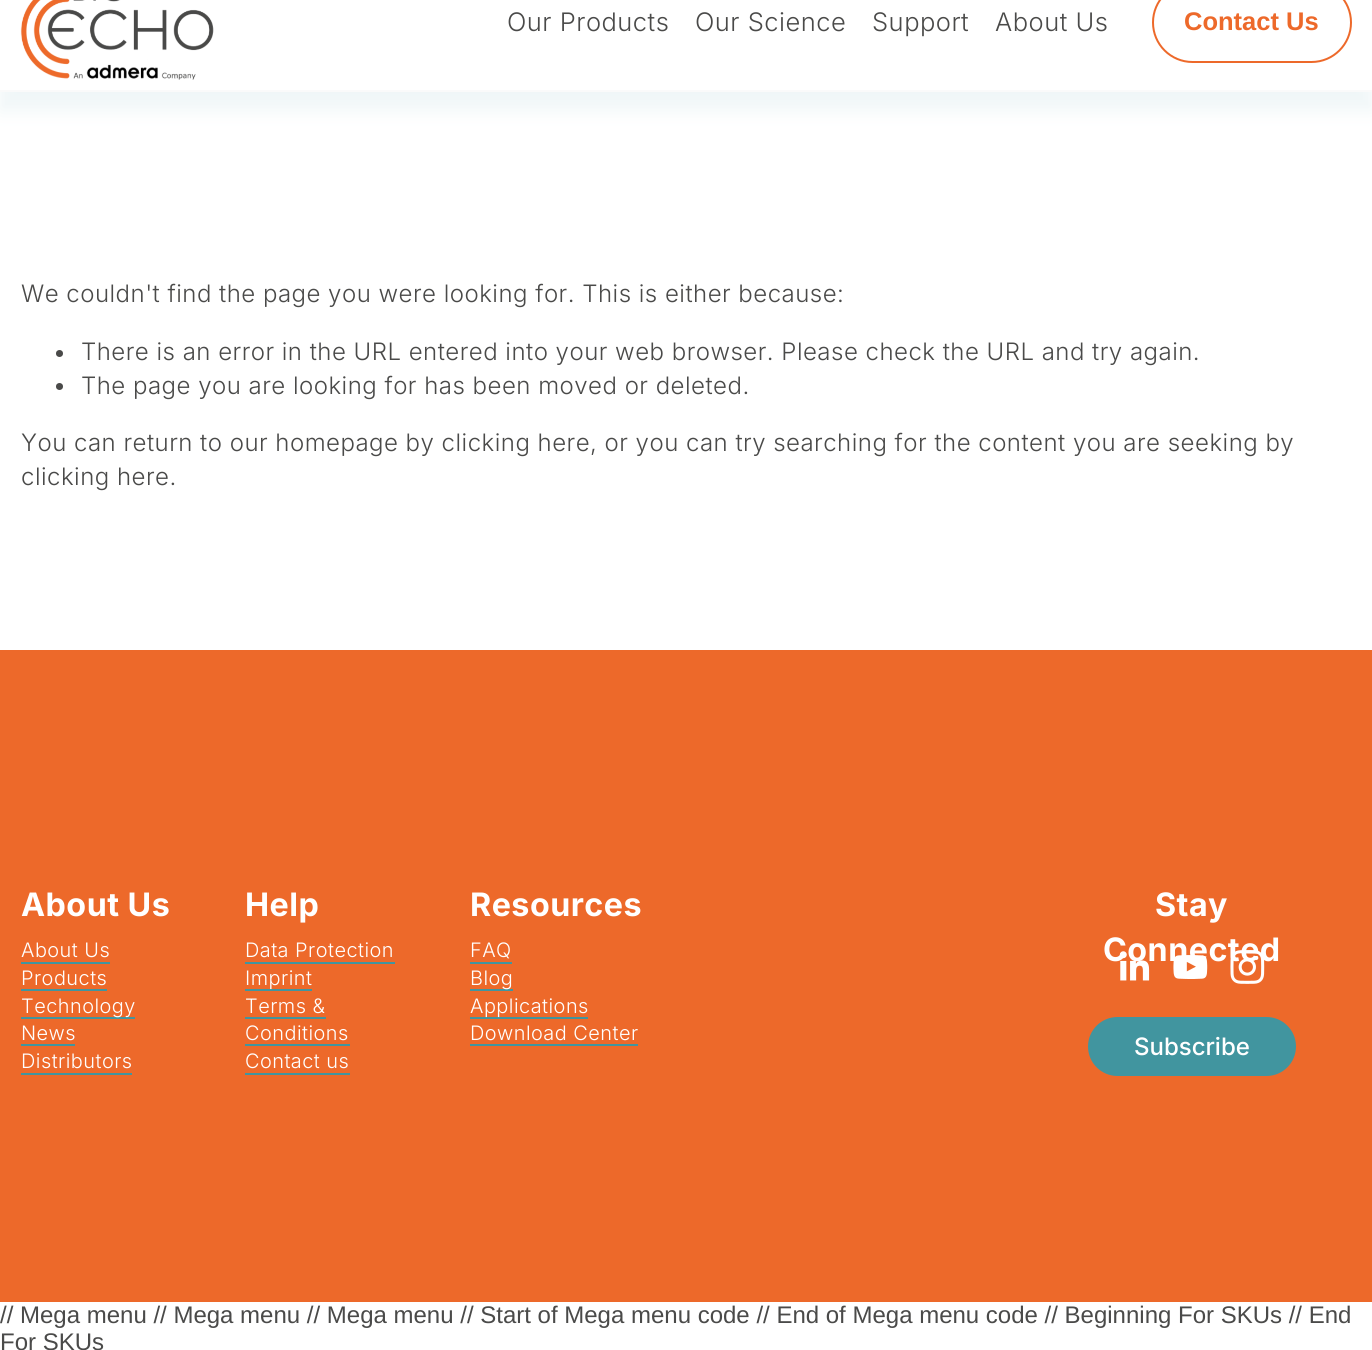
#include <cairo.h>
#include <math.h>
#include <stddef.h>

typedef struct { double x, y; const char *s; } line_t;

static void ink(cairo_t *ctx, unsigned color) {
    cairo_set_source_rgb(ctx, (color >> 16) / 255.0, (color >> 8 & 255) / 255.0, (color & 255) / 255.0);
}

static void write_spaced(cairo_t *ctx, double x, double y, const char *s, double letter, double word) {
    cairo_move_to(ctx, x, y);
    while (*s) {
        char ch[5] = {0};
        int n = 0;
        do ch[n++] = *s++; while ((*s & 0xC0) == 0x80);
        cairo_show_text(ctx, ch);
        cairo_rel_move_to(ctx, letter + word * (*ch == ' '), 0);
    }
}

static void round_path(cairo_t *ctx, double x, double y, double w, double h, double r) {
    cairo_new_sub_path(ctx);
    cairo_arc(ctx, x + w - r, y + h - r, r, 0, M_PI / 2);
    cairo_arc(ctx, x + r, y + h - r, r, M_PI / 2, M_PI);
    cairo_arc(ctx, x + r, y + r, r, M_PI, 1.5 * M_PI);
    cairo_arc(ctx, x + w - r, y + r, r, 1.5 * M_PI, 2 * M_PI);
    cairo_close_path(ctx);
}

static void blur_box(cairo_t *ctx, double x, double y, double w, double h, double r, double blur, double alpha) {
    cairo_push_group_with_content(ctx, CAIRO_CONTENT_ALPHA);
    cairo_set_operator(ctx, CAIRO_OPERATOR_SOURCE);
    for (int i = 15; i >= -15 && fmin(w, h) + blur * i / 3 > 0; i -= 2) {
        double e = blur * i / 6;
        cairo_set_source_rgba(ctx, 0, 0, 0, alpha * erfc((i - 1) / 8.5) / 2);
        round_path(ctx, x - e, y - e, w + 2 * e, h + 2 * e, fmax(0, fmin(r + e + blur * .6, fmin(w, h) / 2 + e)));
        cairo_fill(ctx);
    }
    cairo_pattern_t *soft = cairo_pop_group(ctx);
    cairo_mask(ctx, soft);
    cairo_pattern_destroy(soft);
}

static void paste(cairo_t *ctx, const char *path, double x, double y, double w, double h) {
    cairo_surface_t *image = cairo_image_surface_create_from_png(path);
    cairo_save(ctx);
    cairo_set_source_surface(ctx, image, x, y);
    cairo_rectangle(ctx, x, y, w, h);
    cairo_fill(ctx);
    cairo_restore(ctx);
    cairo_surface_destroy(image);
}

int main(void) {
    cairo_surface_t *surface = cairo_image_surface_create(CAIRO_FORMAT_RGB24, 1372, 1350);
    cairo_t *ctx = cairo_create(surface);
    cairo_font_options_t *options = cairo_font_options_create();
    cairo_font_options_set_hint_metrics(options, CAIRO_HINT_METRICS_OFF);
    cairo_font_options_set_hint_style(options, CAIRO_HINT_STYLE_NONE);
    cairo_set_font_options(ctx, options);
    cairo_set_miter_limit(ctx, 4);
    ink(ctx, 0xFFFFFF);
    cairo_paint(ctx);
    ink(ctx, 0xE3EFF1);
    blur_box(ctx, 0, -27, 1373, 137, 0, 9, 0.55);
    ink(ctx, 0xFFFFFF);
    cairo_rectangle(ctx, 0, 0, 1372, 90);
    cairo_fill(ctx);
    paste(ctx, "media/1.png", 20, 0, 194, 80);
    cairo_select_font_face(ctx, "Inter Light", CAIRO_FONT_SLANT_NORMAL, CAIRO_FONT_WEIGHT_NORMAL);
    cairo_set_font_size(ctx, 25.5);
    ink(ctx, 0x4A4A49);
    {
        static const line_t items[] = {
            {507, 31, "Our Products"},
            {695, 31, "Our Science"},
            {872, 31, "Support"},
            {995, 31, "About Us"},
        };
        for (size_t i = 0; i < sizeof items / sizeof *items; i++) {
            write_spaced(ctx, items[i].x, items[i].y, items[i].s, 0.5, 0);
        }
    }
    round_path(ctx, 1153, -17, 198, 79, 39.5);
    ink(ctx, 0xED692A);
    cairo_stroke(ctx);
    cairo_select_font_face(ctx, "Liberation Sans", CAIRO_FONT_SLANT_NORMAL, CAIRO_FONT_WEIGHT_BOLD);
    cairo_move_to(ctx, 1184, 30);
    cairo_show_text(ctx, "Contact Us");
    ink(ctx, 0xFAFAFA);
    cairo_rectangle(ctx, 0, 90, 1372, 2);
    cairo_fill(ctx);
    cairo_select_font_face(ctx, "Inter Light", CAIRO_FONT_SLANT_NORMAL, CAIRO_FONT_WEIGHT_NORMAL);
    cairo_set_font_size(ctx, 24);
    ink(ctx, 0x4A4A49);
    write_spaced(ctx, 21, 302, "We couldn't find the page you were looking for. This is either because:", 0.48, 0);
    cairo_new_path(ctx);
    cairo_arc(ctx, 59.5, 353.5, 3.5, 0, 2 * M_PI);
    cairo_fill(ctx);
    write_spaced(ctx, 81, 360, "There is an error in the URL entered into your web browser. Please check the URL and try again.", 0.48, 0);
    cairo_new_path(ctx);
    cairo_arc(ctx, 59.5, 386.5, 3.5, 0, 2 * M_PI);
    cairo_fill(ctx);
    {
        static const line_t items[] = {
            {81, 394, "The page you are looking for has been moved or deleted."},
            {21, 451, "You can return to our homepage by clicking here, or you can try searching for the content you are seeking by"},
            {21, 485, "clicking here."},
        };
        for (size_t i = 0; i < sizeof items / sizeof *items; i++) {
            write_spaced(ctx, items[i].x, items[i].y, items[i].s, 0.48, 0);
        }
    }
    ink(ctx, 0xED692A);
    cairo_rectangle(ctx, 0, 650, 1372, 652);
    cairo_fill(ctx);
    cairo_select_font_face(ctx, "Inter", CAIRO_FONT_SLANT_NORMAL, CAIRO_FONT_WEIGHT_BOLD);
    cairo_set_font_size(ctx, 32.25);
    ink(ctx, 0xFFFFFF);
    {
        static const line_t items[] = {
            {21, 916, "About Us"},
            {245, 916, "Help"},
            {470, 916, "Resources"},
            {1155, 916, "Stay"},
            {1103, 961, "Connected"},
        };
        for (size_t i = 0; i < sizeof items / sizeof *items; i++) {
            write_spaced(ctx, items[i].x, items[i].y, items[i].s, 0.48, 0);
        }
    }
    cairo_select_font_face(ctx, "Inter Light", CAIRO_FONT_SLANT_NORMAL, CAIRO_FONT_WEIGHT_NORMAL);
    cairo_set_font_size(ctx, 19.9);
    write_spaced(ctx, 21, 957, "About Us", 0.48, 0);
    ink(ctx, 0x41959F);
    cairo_rectangle(ctx, 21, 962, 89, 2);
    cairo_fill(ctx);
    ink(ctx, 0xFFFFFF);
    write_spaced(ctx, 21, 985, "Products", 0.48, 0);
    ink(ctx, 0x41959F);
    cairo_rectangle(ctx, 21, 989, 86, 2);
    cairo_fill(ctx);
    cairo_rectangle(ctx, 21, 1017, 114, 2);
    cairo_fill(ctx);
    ink(ctx, 0xFFFFFF);
    write_spaced(ctx, 21, 1013, "Technology", 0.48, 0);
    write_spaced(ctx, 21, 1040, "News", 0.48, 0);
    ink(ctx, 0x41959F);
    cairo_rectangle(ctx, 21, 1044, 54, 2);
    cairo_fill(ctx);
    ink(ctx, 0xFFFFFF);
    write_spaced(ctx, 21, 1068, "Distributors", 0.48, 0);
    ink(ctx, 0x41959F);
    cairo_rectangle(ctx, 21, 1073, 111, 2);
    cairo_fill(ctx);
    ink(ctx, 0xFFFFFF);
    write_spaced(ctx, 245, 957, "Data Protection", 0.48, 0);
    ink(ctx, 0x41959F);
    cairo_rectangle(ctx, 245, 962, 150, 2);
    cairo_fill(ctx);
    cairo_rectangle(ctx, 245, 989, 67, 2);
    cairo_fill(ctx);
    ink(ctx, 0xFFFFFF);
    write_spaced(ctx, 245, 985, "Imprint", 0.48, 0);
    write_spaced(ctx, 245, 1013, "Terms &", 0.48, 0);
    ink(ctx, 0x41959F);
    cairo_rectangle(ctx, 245, 1017, 81, 2);
    cairo_fill(ctx);
    ink(ctx, 0xFFFFFF);
    write_spaced(ctx, 245, 1040, "Conditions", 0.48, 0);
    ink(ctx, 0x41959F);
    cairo_rectangle(ctx, 245, 1044, 105, 2);
    cairo_fill(ctx);
    ink(ctx, 0xFFFFFF);
    write_spaced(ctx, 245, 1068, "Contact us", 0.48, 0);
    ink(ctx, 0x41959F);
    cairo_rectangle(ctx, 245, 1073, 105, 2);
    cairo_fill(ctx);
    ink(ctx, 0xFFFFFF);
    write_spaced(ctx, 470, 957, "FAQ", 0.48, 0);
    ink(ctx, 0x41959F);
    cairo_rectangle(ctx, 470, 962, 42, 2);
    cairo_fill(ctx);
    cairo_rectangle(ctx, 470, 989, 43, 2);
    cairo_fill(ctx);
    ink(ctx, 0xFFFFFF);
    write_spaced(ctx, 470, 985, "Blog", 0.48, 0);
    ink(ctx, 0x41959F);
    cairo_rectangle(ctx, 470, 1017, 118, 2);
    cairo_fill(ctx);
    ink(ctx, 0xFFFFFF);
    write_spaced(ctx, 470, 1013, "Applications", 0.48, 0);
    write_spaced(ctx, 470, 1040, "Download Center", 0.48, 0);
    ink(ctx, 0x41959F);
    cairo_rectangle(ctx, 470, 1044, 168, 2);
    cairo_fill(ctx);
    paste(ctx, "media/2.png", 1119, 951, 31, 30);
    paste(ctx, "media/3.png", 1173, 955, 35, 24);
    paste(ctx, "media/4.png", 1230, 950, 35, 34);
    round_path(ctx, 1088, 1017, 208, 59, 29.5);
    cairo_fill(ctx);
    cairo_select_font_face(ctx, "Inter Medium", CAIRO_FONT_SLANT_NORMAL, CAIRO_FONT_WEIGHT_NORMAL);
    cairo_set_font_size(ctx, 24);
    ink(ctx, 0xFFFFFF);
    cairo_move_to(ctx, 1134, 1055);
    cairo_show_text(ctx, "Subscribe");
    cairo_select_font_face(ctx, "Liberation Sans", CAIRO_FONT_SLANT_NORMAL, CAIRO_FONT_WEIGHT_NORMAL);
    ink(ctx, 0x4A4A49);
    cairo_move_to(ctx, 0, 1323);
    cairo_show_text(ctx, "// Mega menu // Mega menu // Mega menu // Start of Mega menu code // End of Mega menu code // Beginning For SKUs // End");
    cairo_move_to(ctx, 0, 1350);
    cairo_show_text(ctx, "For SKUs");
    cairo_surface_write_to_png(surface, "image.png");
    cairo_font_options_destroy(options);
    cairo_destroy(ctx);
    cairo_surface_destroy(surface);
    return 0;
}
